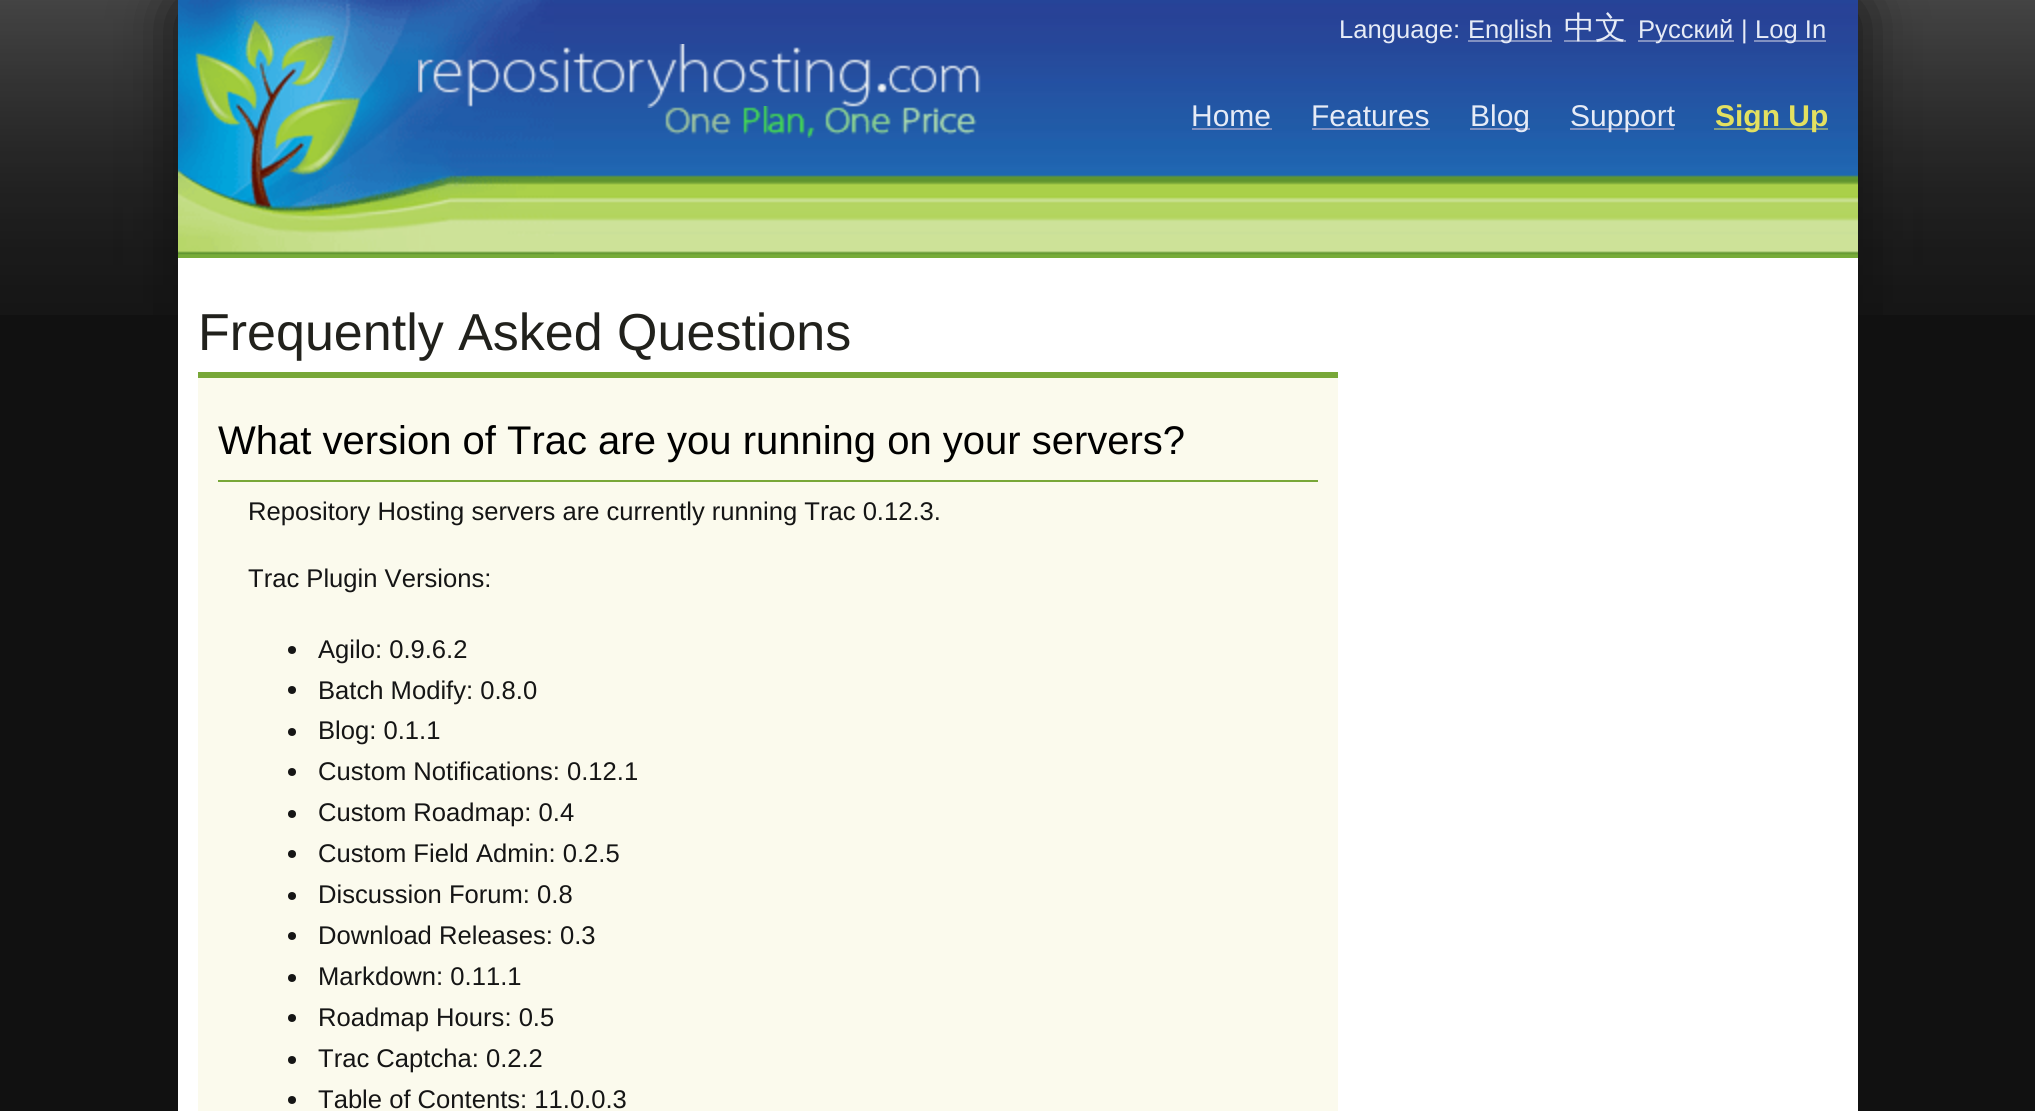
#include <cairo.h>
#include <math.h>
#include <stddef.h>


static void ink(cairo_t *ctx, unsigned color) {
    cairo_set_source_rgb(ctx, (color >> 16) / 255.0, (color >> 8 & 255) / 255.0, (color & 255) / 255.0);
}

static void round_path(cairo_t *ctx, double x, double y, double w, double h, double r) {
    cairo_new_sub_path(ctx);
    cairo_arc(ctx, x + w - r, y + h - r, r, 0, M_PI / 2);
    cairo_arc(ctx, x + r, y + h - r, r, M_PI / 2, M_PI);
    cairo_arc(ctx, x + r, y + r, r, M_PI, 1.5 * M_PI);
    cairo_arc(ctx, x + w - r, y + r, r, 1.5 * M_PI, 2 * M_PI);
    cairo_close_path(ctx);
}

static void blur_box(cairo_t *ctx, double x, double y, double w, double h, double r, double blur, double alpha) {
    cairo_push_group_with_content(ctx, CAIRO_CONTENT_ALPHA);
    cairo_set_operator(ctx, CAIRO_OPERATOR_SOURCE);
    for (int i = 15; i >= -15 && fmin(w, h) + blur * i / 3 > 0; i -= 2) {
        double e = blur * i / 6;
        cairo_set_source_rgba(ctx, 0, 0, 0, alpha * erfc((i - 1) / 8.5) / 2);
        round_path(ctx, x - e, y - e, w + 2 * e, h + 2 * e, fmax(0, fmin(r + e + blur * .6, fmin(w, h) / 2 + e)));
        cairo_fill(ctx);
    }
    cairo_pattern_t *soft = cairo_pop_group(ctx);
    cairo_mask(ctx, soft);
    cairo_pattern_destroy(soft);
}

static void paste(cairo_t *ctx, const char *path, double x, double y, double w, double h) {
    cairo_surface_t *image = cairo_image_surface_create_from_png(path);
    cairo_save(ctx);
    cairo_set_source_surface(ctx, image, x, y);
    cairo_rectangle(ctx, x, y, w, h);
    cairo_fill(ctx);
    cairo_restore(ctx);
    cairo_surface_destroy(image);
}

int main(void) {
    cairo_surface_t *surface = cairo_image_surface_create(CAIRO_FORMAT_RGB24, 2035, 1111);
    cairo_t *ctx = cairo_create(surface);
    cairo_font_options_t *options = cairo_font_options_create();
    cairo_font_options_set_hint_metrics(options, CAIRO_HINT_METRICS_OFF);
    cairo_font_options_set_hint_style(options, CAIRO_HINT_STYLE_NONE);
    cairo_set_font_options(ctx, options);
    cairo_set_miter_limit(ctx, 4);
    ink(ctx, 0x111111);
    cairo_paint(ctx);
    paste(ctx, "media/1.png", 0, 0, 2035, 315);
    blur_box(ctx, 178, 0, 1680, 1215, 14, 30, 1);
    ink(ctx, 0xFFFFFF);
    cairo_rectangle(ctx, 178, 258, 1680, 853);
    cairo_fill(ctx);
    paste(ctx, "media/2.png", 178, 0, 1680, 258);
    paste(ctx, "media/3.png", 178, 0, 376, 254);
    paste(ctx, "media/4.png", 418, 44, 563, 64);
    paste(ctx, "media/5.png", 665, 106, 312, 32);
    cairo_select_font_face(ctx, "Liberation Sans", CAIRO_FONT_SLANT_NORMAL, CAIRO_FONT_WEIGHT_NORMAL);
    cairo_set_font_size(ctx, 25.6);
    ink(ctx, 0xE6EBF6);
    cairo_move_to(ctx, 1339, 38);
    cairo_show_text(ctx, "Language:");
    ink(ctx, 0x8191C1);
    cairo_rectangle(ctx, 1468, 40, 84, 2);
    cairo_fill(ctx);
    ink(ctx, 0xE6EBF6);
    cairo_move_to(ctx, 1468, 38);
    cairo_show_text(ctx, "English");
    ink(ctx, 0x8191C1);
    cairo_rectangle(ctx, 1564, 40, 62, 2);
    cairo_fill(ctx);
    cairo_select_font_face(ctx, "WenQuanYi Zen Hei Medium", CAIRO_FONT_SLANT_NORMAL, CAIRO_FONT_WEIGHT_NORMAL);
    cairo_set_font_size(ctx, 31);
    ink(ctx, 0xE6EBF6);
    cairo_move_to(ctx, 1564, 38);
    cairo_show_text(ctx, "中文");
    ink(ctx, 0x8191C1);
    cairo_rectangle(ctx, 1638, 40, 96, 2);
    cairo_fill(ctx);
    cairo_select_font_face(ctx, "Liberation Sans", CAIRO_FONT_SLANT_NORMAL, CAIRO_FONT_WEIGHT_NORMAL);
    cairo_set_font_size(ctx, 25.6);
    ink(ctx, 0xE6EBF6);
    cairo_move_to(ctx, 1638, 38);
    cairo_show_text(ctx, "Русский");
    cairo_move_to(ctx, 1741, 38);
    cairo_show_text(ctx, "|");
    ink(ctx, 0x8191C1);
    cairo_rectangle(ctx, 1754, 40, 72, 2);
    cairo_fill(ctx);
    ink(ctx, 0xE6EBF6);
    cairo_move_to(ctx, 1755, 38);
    cairo_show_text(ctx, "Log In");
    cairo_set_font_size(ctx, 30);
    cairo_move_to(ctx, 1191, 126);
    cairo_show_text(ctx, "Home");
    ink(ctx, 0x8191C1);
    cairo_rectangle(ctx, 1192, 128, 80, 2);
    cairo_fill(ctx);
    ink(ctx, 0xE6EBF6);
    cairo_move_to(ctx, 1311, 126);
    cairo_show_text(ctx, "Features");
    ink(ctx, 0x8191C1);
    cairo_rectangle(ctx, 1312, 128, 118, 2);
    cairo_fill(ctx);
    cairo_rectangle(ctx, 1470, 128, 60, 2);
    cairo_fill(ctx);
    ink(ctx, 0xE6EBF6);
    cairo_move_to(ctx, 1470, 126);
    cairo_show_text(ctx, "Blog");
    ink(ctx, 0x8191C1);
    cairo_rectangle(ctx, 1570, 128, 104, 2);
    cairo_fill(ctx);
    ink(ctx, 0xE6EBF6);
    cairo_move_to(ctx, 1570, 126);
    cairo_show_text(ctx, "Support");
    ink(ctx, 0x829E84);
    cairo_rectangle(ctx, 1714, 128, 114, 2);
    cairo_fill(ctx);
    cairo_select_font_face(ctx, "Liberation Sans", CAIRO_FONT_SLANT_NORMAL, CAIRO_FONT_WEIGHT_BOLD);
    ink(ctx, 0xE3E060);
    cairo_move_to(ctx, 1715, 126);
    cairo_show_text(ctx, "Sign Up");
    ink(ctx, 0xFBFAED);
    cairo_rectangle(ctx, 198, 378, 1140, 733);
    cairo_fill(ctx);
    ink(ctx, 0x78A738);
    cairo_rectangle(ctx, 198, 372, 1140, 6);
    cairo_fill(ctx);
    cairo_select_font_face(ctx, "Liberation Sans", CAIRO_FONT_SLANT_NORMAL, CAIRO_FONT_WEIGHT_NORMAL);
    cairo_set_font_size(ctx, 52);
    ink(ctx, 0x21211C);
    cairo_move_to(ctx, 198, 350);
    cairo_show_text(ctx, "Frequently Asked Questions");
    cairo_set_font_size(ctx, 40);
    ink(ctx, 0x000000);
    cairo_move_to(ctx, 218, 454);
    cairo_show_text(ctx, "What version of Trac are you running on your servers?");
    ink(ctx, 0x78A738);
    cairo_rectangle(ctx, 218, 480, 1100, 2);
    cairo_fill(ctx);
    cairo_set_font_size(ctx, 25.6);
    ink(ctx, 0x151515);
    cairo_move_to(ctx, 248, 520);
    cairo_show_text(ctx, "Repository Hosting servers are currently running Trac 0.12.3.");
    cairo_move_to(ctx, 248, 587);
    cairo_show_text(ctx, "Trac Plugin Versions:");
    cairo_new_path(ctx);
    cairo_arc(ctx, 292, 650, 4, 0, 2 * M_PI);
    cairo_fill(ctx);
    cairo_move_to(ctx, 318, 658);
    cairo_show_text(ctx, "Agilo: 0.9.6.2");
    cairo_new_path(ctx);
    cairo_arc(ctx, 292, 690, 4, 0, 2 * M_PI);
    cairo_fill(ctx);
    cairo_move_to(ctx, 318, 699);
    cairo_show_text(ctx, "Batch Modify: 0.8.0");
    cairo_new_path(ctx);
    cairo_arc(ctx, 292, 732, 4, 0, 2 * M_PI);
    cairo_fill(ctx);
    cairo_move_to(ctx, 318, 739);
    cairo_show_text(ctx, "Blog: 0.1.1");
    cairo_new_path(ctx);
    cairo_arc(ctx, 292, 772, 4, 0, 2 * M_PI);
    cairo_fill(ctx);
    cairo_move_to(ctx, 318, 780);
    cairo_show_text(ctx, "Custom Notifications: 0.12.1");
    cairo_new_path(ctx);
    cairo_arc(ctx, 292, 814, 4, 0, 2 * M_PI);
    cairo_fill(ctx);
    cairo_move_to(ctx, 318, 821);
    cairo_show_text(ctx, "Custom Roadmap: 0.4");
    cairo_new_path(ctx);
    cairo_arc(ctx, 292, 854, 4, 0, 2 * M_PI);
    cairo_fill(ctx);
    cairo_move_to(ctx, 318, 862);
    cairo_show_text(ctx, "Custom Field Admin: 0.2.5");
    cairo_new_path(ctx);
    cairo_arc(ctx, 292, 896, 4, 0, 2 * M_PI);
    cairo_fill(ctx);
    cairo_move_to(ctx, 318, 903);
    cairo_show_text(ctx, "Discussion Forum: 0.8");
    cairo_new_path(ctx);
    cairo_arc(ctx, 292, 936, 4, 0, 2 * M_PI);
    cairo_fill(ctx);
    cairo_move_to(ctx, 318, 944);
    cairo_show_text(ctx, "Download Releases: 0.3");
    cairo_new_path(ctx);
    cairo_arc(ctx, 292, 978, 4, 0, 2 * M_PI);
    cairo_fill(ctx);
    cairo_move_to(ctx, 318, 985);
    cairo_show_text(ctx, "Markdown: 0.11.1");
    cairo_new_path(ctx);
    cairo_arc(ctx, 292, 1018, 4, 0, 2 * M_PI);
    cairo_fill(ctx);
    cairo_move_to(ctx, 318, 1026);
    cairo_show_text(ctx, "Roadmap Hours: 0.5");
    cairo_new_path(ctx);
    cairo_arc(ctx, 292, 1060, 4, 0, 2 * M_PI);
    cairo_fill(ctx);
    cairo_move_to(ctx, 318, 1067);
    cairo_show_text(ctx, "Trac Captcha: 0.2.2");
    cairo_new_path(ctx);
    cairo_arc(ctx, 292, 1100, 4, 0, 2 * M_PI);
    cairo_fill(ctx);
    cairo_move_to(ctx, 318, 1108);
    cairo_show_text(ctx, "Table of Contents: 11.0.0.3");
    cairo_surface_write_to_png(surface, "image.png");
    cairo_font_options_destroy(options);
    cairo_destroy(ctx);
    cairo_surface_destroy(surface);
    return 0;
}
